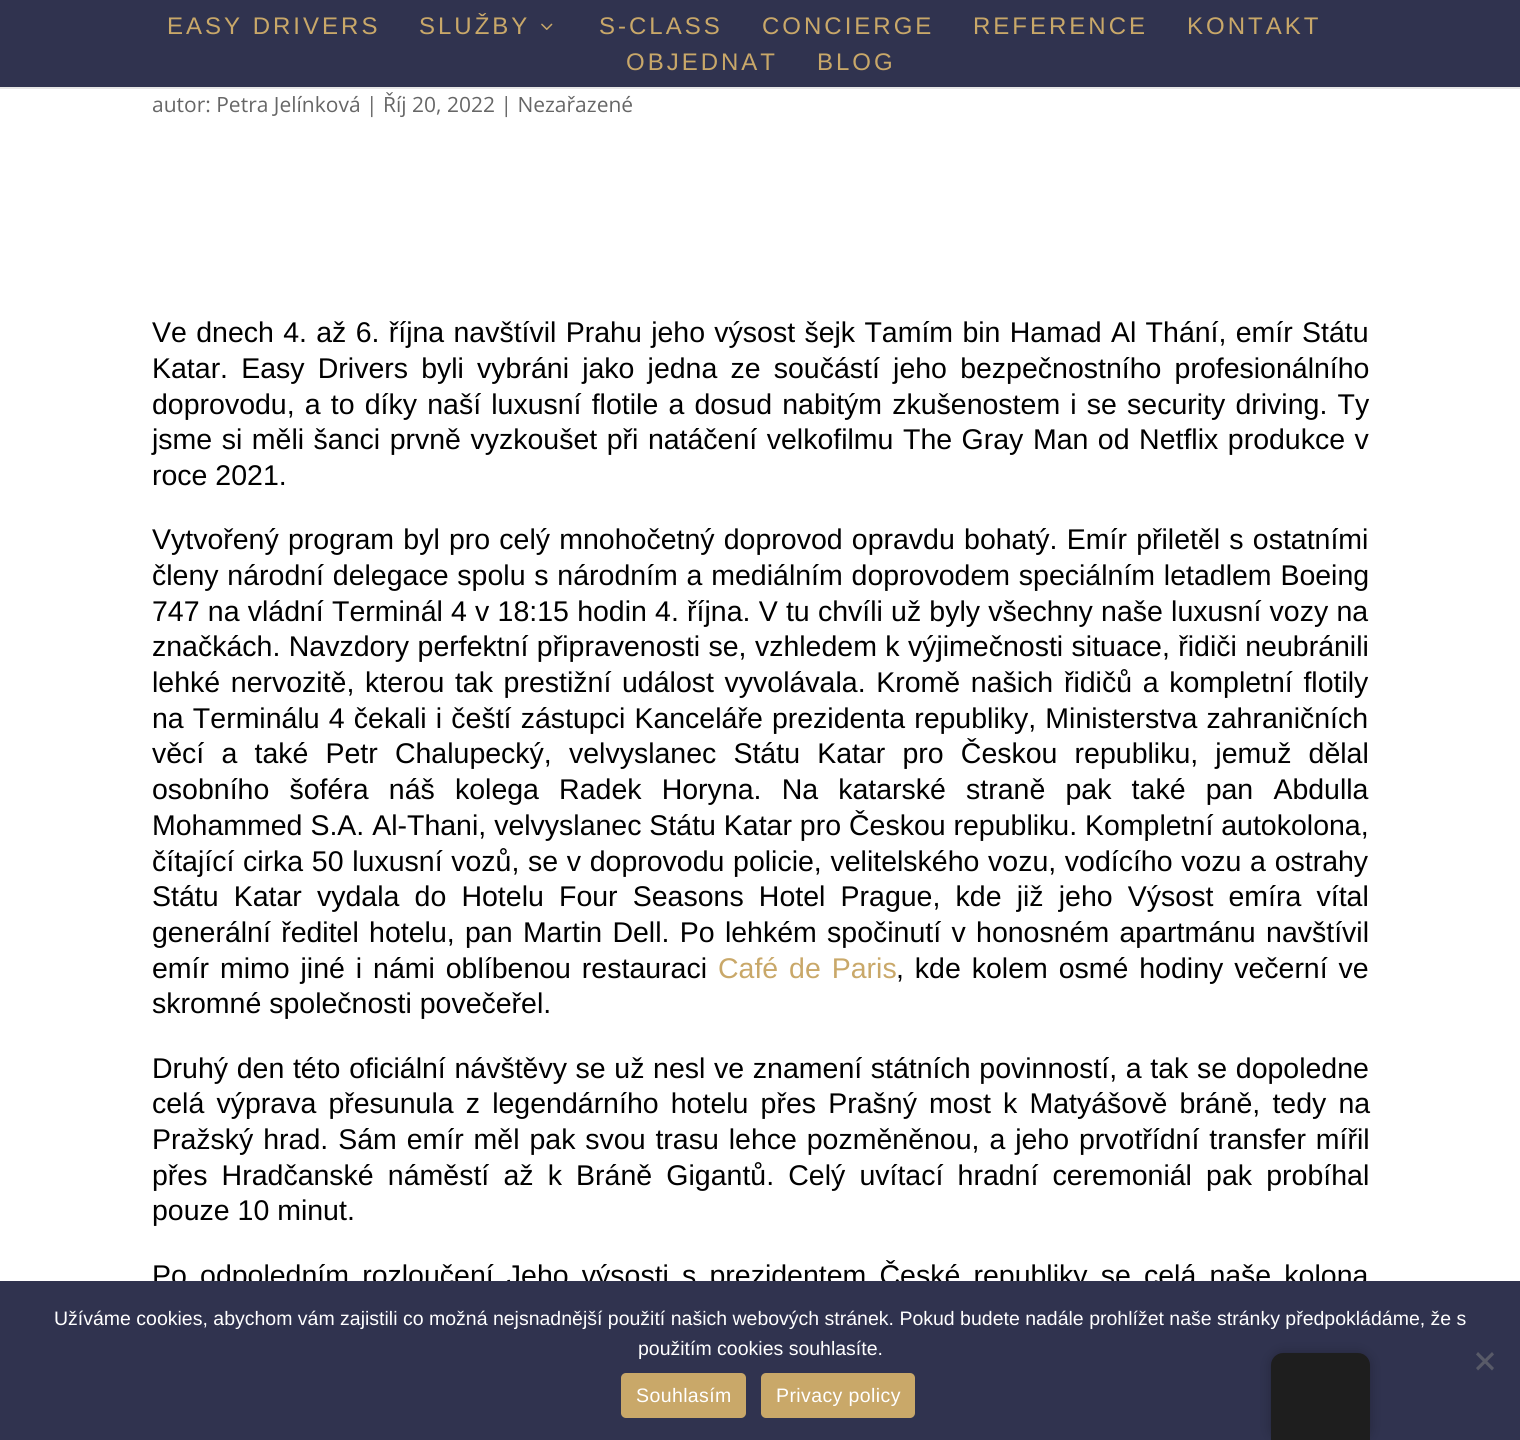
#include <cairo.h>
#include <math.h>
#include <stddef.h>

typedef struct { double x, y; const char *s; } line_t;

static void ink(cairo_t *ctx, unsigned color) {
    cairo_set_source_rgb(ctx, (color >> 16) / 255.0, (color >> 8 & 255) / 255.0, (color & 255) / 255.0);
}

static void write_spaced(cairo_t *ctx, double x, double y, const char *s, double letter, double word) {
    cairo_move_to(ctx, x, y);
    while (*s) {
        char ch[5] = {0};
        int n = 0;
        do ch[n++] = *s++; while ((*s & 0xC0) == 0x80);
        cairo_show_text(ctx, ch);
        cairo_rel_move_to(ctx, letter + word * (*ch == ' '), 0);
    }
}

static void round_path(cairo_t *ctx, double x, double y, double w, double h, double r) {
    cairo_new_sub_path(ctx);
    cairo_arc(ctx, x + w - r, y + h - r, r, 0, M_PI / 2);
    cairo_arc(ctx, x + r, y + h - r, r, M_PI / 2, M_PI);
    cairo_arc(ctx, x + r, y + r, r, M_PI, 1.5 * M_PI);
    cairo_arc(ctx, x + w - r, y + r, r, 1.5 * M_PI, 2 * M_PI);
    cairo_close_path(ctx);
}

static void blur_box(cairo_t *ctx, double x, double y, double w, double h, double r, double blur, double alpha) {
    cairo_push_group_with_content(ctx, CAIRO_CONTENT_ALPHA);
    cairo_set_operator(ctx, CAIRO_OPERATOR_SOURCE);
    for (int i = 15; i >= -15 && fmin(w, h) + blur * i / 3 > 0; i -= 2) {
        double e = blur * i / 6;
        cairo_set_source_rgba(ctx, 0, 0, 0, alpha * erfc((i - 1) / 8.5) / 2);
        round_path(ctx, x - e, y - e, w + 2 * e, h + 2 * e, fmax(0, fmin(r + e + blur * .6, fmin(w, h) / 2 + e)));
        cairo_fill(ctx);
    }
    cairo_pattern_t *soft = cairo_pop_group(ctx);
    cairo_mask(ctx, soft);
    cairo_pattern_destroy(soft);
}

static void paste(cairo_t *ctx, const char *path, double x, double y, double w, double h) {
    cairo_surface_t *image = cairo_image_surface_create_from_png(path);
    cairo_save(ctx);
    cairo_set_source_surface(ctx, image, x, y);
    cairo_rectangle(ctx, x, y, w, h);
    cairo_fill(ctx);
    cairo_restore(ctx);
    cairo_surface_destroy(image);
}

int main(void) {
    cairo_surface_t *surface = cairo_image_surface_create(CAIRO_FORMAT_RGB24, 1520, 1440);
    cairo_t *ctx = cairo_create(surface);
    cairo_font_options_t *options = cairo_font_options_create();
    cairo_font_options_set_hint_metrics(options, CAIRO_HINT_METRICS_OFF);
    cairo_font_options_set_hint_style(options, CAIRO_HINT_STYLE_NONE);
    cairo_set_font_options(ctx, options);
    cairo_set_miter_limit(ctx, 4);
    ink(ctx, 0xFFFFFF);
    cairo_paint(ctx);
    ink(ctx, 0xE6E6E6);
    cairo_rectangle(ctx, 0, 87, 1520, 2);
    cairo_fill(ctx);
    ink(ctx, 0x30334F);
    cairo_rectangle(ctx, 0, 0, 1520, 87);
    cairo_fill(ctx);
    cairo_select_font_face(ctx, "Liberation Sans", CAIRO_FONT_SLANT_NORMAL, CAIRO_FONT_WEIGHT_NORMAL);
    cairo_set_font_size(ctx, 24);
    ink(ctx, 0xC9A869);
    write_spaced(ctx, 167, 34, "EASY DRIVERS", 3, 0);
    write_spaced(ctx, 419, 34, "SLUŽBY", 3, 0);
    paste(ctx, "media/1.png", 541, 23, 12, 7);
    {
        static const line_t items[] = {
            {599, 34, "S-CLASS"},
            {762, 34, "CONCIERGE"},
            {973, 34, "REFERENCE"},
            {1187, 34, "KONTAKT"},
            {626, 70, "OBJEDNAT"},
            {817, 70, "BLOG"},
        };
        for (size_t i = 0; i < sizeof items / sizeof *items; i++) {
            write_spaced(ctx, items[i].x, items[i].y, items[i].s, 3, 0);
        }
    }
    cairo_select_font_face(ctx, "Open Sans", CAIRO_FONT_SLANT_NORMAL, CAIRO_FONT_WEIGHT_NORMAL);
    cairo_set_font_size(ctx, 21);
    ink(ctx, 0x666666);
    cairo_move_to(ctx, 152, 112);
    cairo_show_text(ctx, "autor: Petra Jelínková | Říj 20, 2022 | Nezařazené");
    cairo_select_font_face(ctx, "Liberation Sans", CAIRO_FONT_SLANT_NORMAL, CAIRO_FONT_WEIGHT_NORMAL);
    cairo_set_font_size(ctx, 28.5);
    ink(ctx, 0x000000);
    write_spaced(ctx, 152, 342, "Ve dnech 4. až 6. října navštívil Prahu jeho výsost šejk Tamím bin Hamad Al Thání, emír Státu", 0, 1.4);
    write_spaced(ctx, 152, 378, "Katar. Easy Drivers byli vybráni jako jedna ze součástí jeho bezpečnostního profesionálního", 0, 5.25);
    write_spaced(ctx, 152, 414, "doprovodu, a to díky naší luxusní flotile a dosud nabitým zkušenostem i se security driving. Ty", 0, 2.25);
    write_spaced(ctx, 152, 449, "jsme si měli šanci prvně vyzkoušet při natáčení velkofilmu The Gray Man od Netflix produkce v", 0, 1.6);
    cairo_move_to(ctx, 152, 485);
    cairo_show_text(ctx, "roce 2021.");
    write_spaced(ctx, 152, 549, "Vytvořený program byl pro celý mnohočetný doprovod opravdu bohatý. Emír přiletěl s ostatními", 0, 1.3);
    write_spaced(ctx, 152, 585, "členy národní delegace spolu s národním a mediálním doprovodem speciálním letadlem Boeing", 0, 0.9);
    write_spaced(ctx, 152, 621, "747 na vládní Terminál 4 v 18:15 hodin 4. října. V tu chvíli už byly všechny naše luxusní vozy na", 0, 0.3);
    write_spaced(ctx, 152, 656, "značkách. Navzdory perfektní připravenosti se, vzhledem k výjimečnosti situace, řidiči neubránili", 0, 0.5);
    write_spaced(ctx, 152, 692, "lehké nervozitě, kterou tak prestižní událost vyvolávala. Kromě našich řidičů a kompletní flotily", 0, 2.75);
    write_spaced(ctx, 152, 728, "na Terminálu 4 čekali i čeští zástupci Kanceláře prezidenta republiky, Ministerstva zahraničních", 0, 1.25);
    write_spaced(ctx, 152, 763, "věcí a také Petr Chalupecký, velvyslanec Státu Katar pro Českou republiku, jemuž dělal", 0, 9.25);
    write_spaced(ctx, 152, 799, "osobního šoféra náš kolega Radek Horyna. Na katarské straně pak také pan Abdulla", 0, 12.25);
    cairo_move_to(ctx, 152, 835);
    cairo_show_text(ctx, "Mohammed S.A. Al-Thani, velvyslanec Státu Katar pro Českou republiku. Kompletní autokolona,");
    write_spaced(ctx, 152, 871, "čítající cirka 50 luxusní vozů, se v doprovodu policie, velitelského vozu, vodícího vozu a ostrahy", 0, 0.75);
    write_spaced(ctx, 152, 906, "Státu Katar vydala do Hotelu Four Seasons Hotel Prague, kde již jeho Výsost emíra vítal", 0, 7.25);
    write_spaced(ctx, 152, 942, "generální ředitel hotelu, pan Martin Dell. Po lehkém spočinutí v honosném apartmánu navštívil", 0, 2.4);
    write_spaced(ctx, 152, 978, "emír mimo jiné i námi oblíbenou restauraci", 0, 3);
    ink(ctx, 0xC9A869);
    write_spaced(ctx, 718, 978, "Café de Paris", 0, 3);
    ink(ctx, 0x000000);
    write_spaced(ctx, 896, 978, ", kde kolem osmé hodiny večerní ve", 0, 3);
    cairo_move_to(ctx, 152, 1013);
    cairo_show_text(ctx, "skromné společnosti povečeřel.");
    write_spaced(ctx, 152, 1078, "Druhý den této oficiální návštěvy se už nesl ve znamení státních povinností, a tak se dopoledne", 0, 0.75);
    write_spaced(ctx, 152, 1113, "celá výprava přesunula z legendárního hotelu přes Prašný most k Matyášově bráně, tedy na", 0, 4.25);
    write_spaced(ctx, 152, 1149, "Pražský hrad. Sám emír měl pak svou trasu lehce pozměněnou, a jeho prvotřídní transfer mířil", 0, 2);
    write_spaced(ctx, 152, 1185, "přes Hradčanské náměstí až k Bráně Gigantů. Celý uvítací hradní ceremoniál pak probíhal", 0, 6.25);
    cairo_move_to(ctx, 152, 1220);
    cairo_show_text(ctx, "pouze 10 minut.");
    write_spaced(ctx, 152, 1285, "Po odpoledním rozloučení Jeho výsosti s prezidentem České republiky se celá naše kolona", 0, 5.25);
    ink(ctx, 0x30334F);
    cairo_rectangle(ctx, 0, 1281, 1520, 159);
    cairo_fill(ctx);
    cairo_set_font_size(ctx, 19.5);
    ink(ctx, 0xFFFFFF);
    cairo_move_to(ctx, 54, 1325);
    cairo_show_text(ctx, "Užíváme cookies, abychom vám zajistili co možná nejsnadnější použití našich webových stránek. Pokud budete nadále prohlížet naše stránky předpokládáme, že s");
    cairo_move_to(ctx, 638, 1355);
    cairo_show_text(ctx, "použitím cookies souhlasíte.");
    ink(ctx, 0x585A68);
    cairo_new_path(ctx);
    cairo_move_to(ctx, 1492, 1352);
    cairo_line_to(ctx, 1494, 1354.5);
    cairo_line_to(ctx, 1478, 1370.5);
    cairo_line_to(ctx, 1476, 1368);
    cairo_close_path(ctx);
    cairo_fill(ctx);
    cairo_new_path(ctx);
    cairo_move_to(ctx, 1476, 1354.5);
    cairo_line_to(ctx, 1478, 1352);
    cairo_line_to(ctx, 1494, 1368);
    cairo_line_to(ctx, 1492, 1370.5);
    cairo_close_path(ctx);
    cairo_fill(ctx);
    ink(ctx, 0xC9A869);
    round_path(ctx, 621, 1373, 125, 45, 5);
    cairo_fill(ctx);
    ink(ctx, 0xFFFFFF);
    write_spaced(ctx, 636, 1402, "Souhlasím", 0.4, 0);
    ink(ctx, 0xC9A869);
    round_path(ctx, 761, 1373, 154, 45, 5);
    cairo_fill(ctx);
    ink(ctx, 0xFFFFFF);
    write_spaced(ctx, 776, 1402, "Privacy policy", 0.4, 0);
    ink(ctx, 0x000000);
    blur_box(ctx, 1271, 1353, 99, 87, 12, 6, 0.25);
    ink(ctx, 0x1E1E1E);
    cairo_new_path(ctx);
    cairo_move_to(ctx, 1283, 1353);
    cairo_line_to(ctx, 1358, 1353);
    cairo_curve_to(ctx, 1364.5, 1353, 1370, 1358.5, 1370, 1365);
    cairo_line_to(ctx, 1370, 1440);
    cairo_line_to(ctx, 1271, 1440);
    cairo_line_to(ctx, 1271, 1365);
    cairo_curve_to(ctx, 1271, 1358.5, 1276.5, 1353, 1283, 1353);
    cairo_close_path(ctx);
    cairo_fill(ctx);
    cairo_surface_write_to_png(surface, "image.png");
    cairo_font_options_destroy(options);
    cairo_destroy(ctx);
    cairo_surface_destroy(surface);
    return 0;
}
